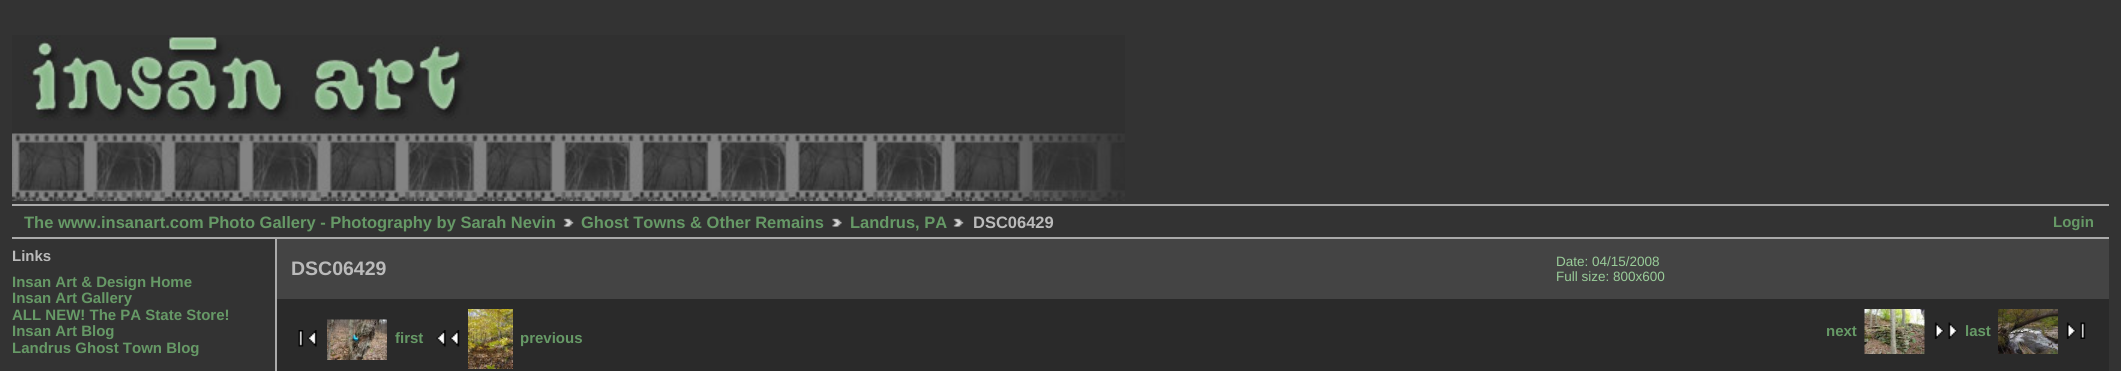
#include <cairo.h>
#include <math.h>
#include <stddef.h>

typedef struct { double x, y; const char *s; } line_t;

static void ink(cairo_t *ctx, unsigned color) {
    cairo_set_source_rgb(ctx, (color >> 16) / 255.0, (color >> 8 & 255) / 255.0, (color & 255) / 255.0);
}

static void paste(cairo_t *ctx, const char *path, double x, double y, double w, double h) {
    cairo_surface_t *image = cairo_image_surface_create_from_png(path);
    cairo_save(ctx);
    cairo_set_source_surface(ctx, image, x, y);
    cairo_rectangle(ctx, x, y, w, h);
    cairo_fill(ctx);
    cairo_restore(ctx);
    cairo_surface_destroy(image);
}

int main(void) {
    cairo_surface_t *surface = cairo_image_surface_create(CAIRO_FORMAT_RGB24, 2121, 371);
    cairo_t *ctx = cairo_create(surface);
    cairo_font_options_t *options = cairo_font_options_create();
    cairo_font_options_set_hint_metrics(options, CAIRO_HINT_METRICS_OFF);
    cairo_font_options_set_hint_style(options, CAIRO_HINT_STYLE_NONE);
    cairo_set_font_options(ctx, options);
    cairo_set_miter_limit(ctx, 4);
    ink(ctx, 0x333333);
    cairo_paint(ctx);
    paste(ctx, "media/1.png", 12, 35, 1113, 166);
    ink(ctx, 0xAAAAAA);
    cairo_rectangle(ctx, 12, 204, 2097, 2);
    cairo_fill(ctx);
    cairo_rectangle(ctx, 12, 237, 2097, 2);
    cairo_fill(ctx);
    cairo_select_font_face(ctx, "Liberation Sans", CAIRO_FONT_SLANT_NORMAL, CAIRO_FONT_WEIGHT_BOLD);
    cairo_set_font_size(ctx, 16.5);
    ink(ctx, 0x669966);
    cairo_move_to(ctx, 24, 228);
    cairo_show_text(ctx, "The www.insanart.com Photo Gallery - Photography by Sarah Nevin");
    paste(ctx, "media/2.png", 563, 218, 11, 9);
    cairo_move_to(ctx, 581, 228);
    cairo_show_text(ctx, "Ghost Towns & Other Remains");
    paste(ctx, "media/3.png", 832, 218, 10, 9);
    cairo_move_to(ctx, 850, 228);
    cairo_show_text(ctx, "Landrus, PA");
    paste(ctx, "media/4.png", 953, 218, 11, 9);
    ink(ctx, 0xBBBBBB);
    cairo_move_to(ctx, 973, 228);
    cairo_show_text(ctx, "DSC06429");
    cairo_set_font_size(ctx, 15);
    ink(ctx, 0x669966);
    cairo_move_to(ctx, 2053, 227);
    cairo_show_text(ctx, "Login");
    ink(ctx, 0xAAAAAA);
    cairo_rectangle(ctx, 275, 239, 2, 132);
    cairo_fill(ctx);
    ink(ctx, 0xBBBBBB);
    cairo_move_to(ctx, 12, 261);
    cairo_show_text(ctx, "Links");
    ink(ctx, 0x669966);
    {
        static const line_t items[] = {
            {12, 287, "Insan Art & Design Home"},
            {12, 303, "Insan Art Gallery"},
            {12, 320, "ALL NEW! The PA State Store!"},
            {12, 336, "Insan Art Blog"},
            {12, 353, "Landrus Ghost Town Blog"},
        };
        for (size_t i = 0; i < sizeof items / sizeof *items; i++) {
            cairo_move_to(ctx, items[i].x, items[i].y);
            cairo_show_text(ctx, items[i].s);
        }
    }
    ink(ctx, 0x444444);
    cairo_rectangle(ctx, 277, 239, 1832, 60);
    cairo_fill(ctx);
    cairo_set_font_size(ctx, 19.5);
    ink(ctx, 0xBBBBBB);
    cairo_move_to(ctx, 291, 275);
    cairo_show_text(ctx, "DSC06429");
    cairo_select_font_face(ctx, "Liberation Sans", CAIRO_FONT_SLANT_NORMAL, CAIRO_FONT_WEIGHT_NORMAL);
    cairo_set_font_size(ctx, 13.5);
    ink(ctx, 0x99CC99);
    cairo_move_to(ctx, 1556, 266);
    cairo_show_text(ctx, "Date: 04/15/2008");
    cairo_move_to(ctx, 1556, 281);
    cairo_show_text(ctx, "Full size: 800x600");
    ink(ctx, 0x2A2A2A);
    cairo_rectangle(ctx, 277, 299, 1832, 72);
    cairo_fill(ctx);
    paste(ctx, "media/5.png", 298, 330, 19, 17);
    paste(ctx, "media/6.png", 327, 319, 60, 41);
    cairo_select_font_face(ctx, "Liberation Sans", CAIRO_FONT_SLANT_NORMAL, CAIRO_FONT_WEIGHT_BOLD);
    cairo_set_font_size(ctx, 15);
    ink(ctx, 0x669966);
    cairo_move_to(ctx, 395, 343);
    cairo_show_text(ctx, "first");
    paste(ctx, "media/7.png", 436, 330, 24, 17);
    paste(ctx, "media/8.png", 468, 309, 45, 60);
    cairo_move_to(ctx, 520, 343);
    cairo_show_text(ctx, "previous");
    cairo_move_to(ctx, 1826, 336);
    cairo_show_text(ctx, "next");
    paste(ctx, "media/9.png", 1864, 309, 61, 45);
    paste(ctx, "media/10.png", 1934, 322, 24, 17);
    cairo_move_to(ctx, 1965, 336);
    cairo_show_text(ctx, "last");
    paste(ctx, "media/11.png", 1998, 309, 60, 45);
    paste(ctx, "media/12.png", 2066, 322, 20, 17);
    cairo_surface_write_to_png(surface, "image.png");
    cairo_font_options_destroy(options);
    cairo_destroy(ctx);
    cairo_surface_destroy(surface);
    return 0;
}
